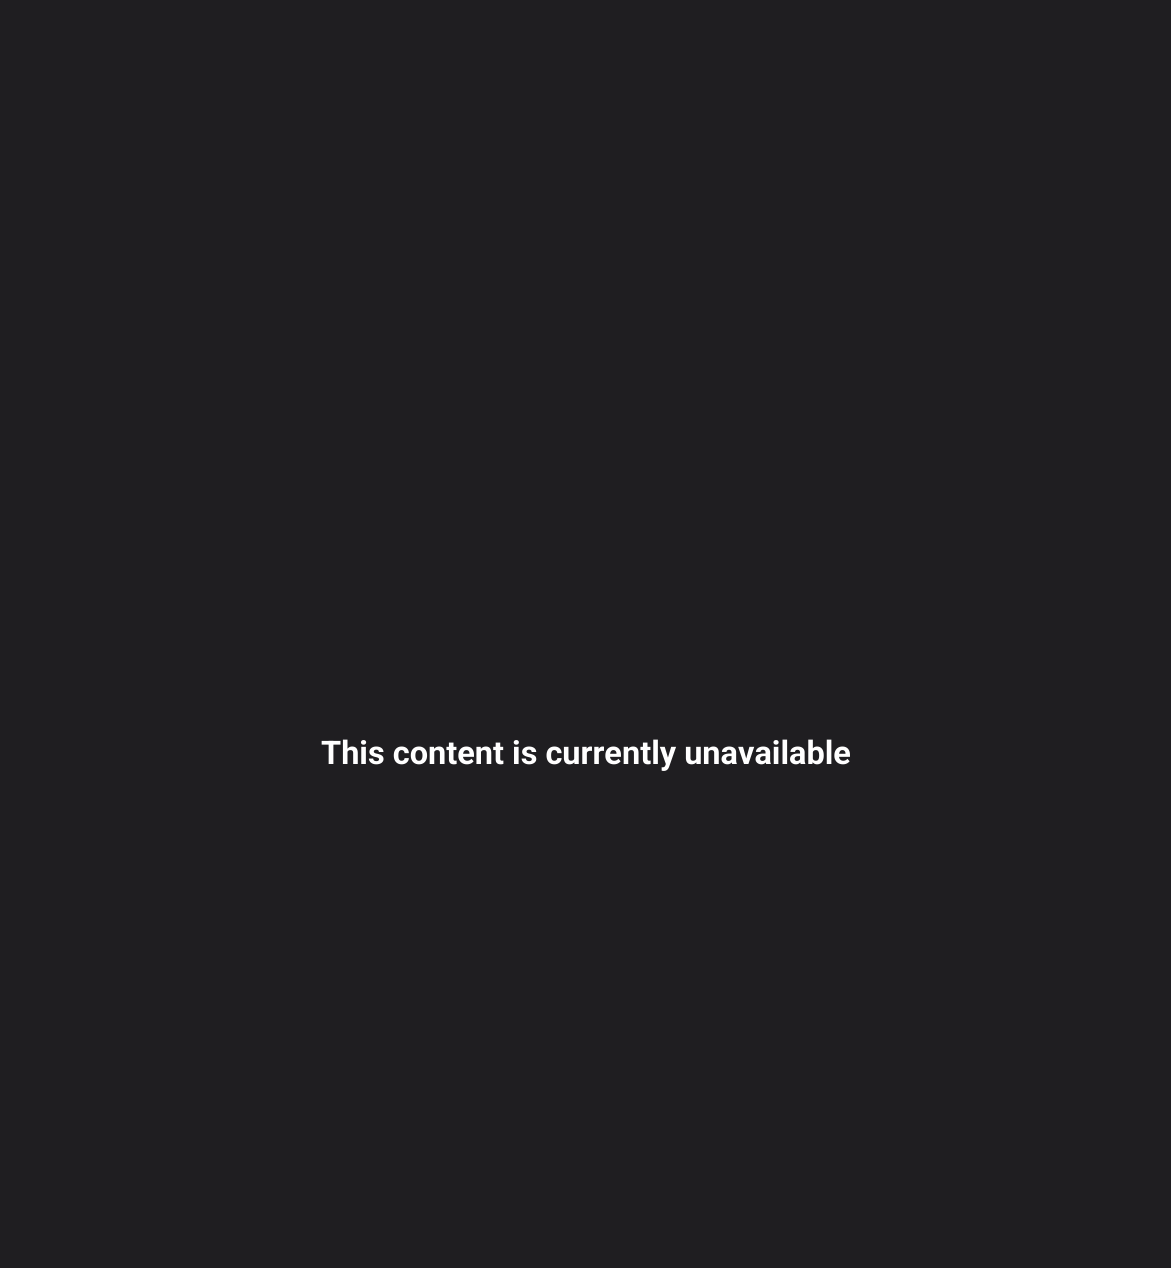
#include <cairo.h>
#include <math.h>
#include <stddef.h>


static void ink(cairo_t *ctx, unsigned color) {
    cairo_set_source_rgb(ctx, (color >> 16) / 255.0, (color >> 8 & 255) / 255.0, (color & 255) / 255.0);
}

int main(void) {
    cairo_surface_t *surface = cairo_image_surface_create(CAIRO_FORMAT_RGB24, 1171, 1268);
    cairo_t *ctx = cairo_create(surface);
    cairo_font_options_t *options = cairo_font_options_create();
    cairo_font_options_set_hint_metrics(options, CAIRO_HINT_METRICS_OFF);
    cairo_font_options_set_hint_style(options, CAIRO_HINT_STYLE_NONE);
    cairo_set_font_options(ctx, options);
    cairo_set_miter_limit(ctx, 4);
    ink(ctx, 0x1F1E21);
    cairo_paint(ctx);
    cairo_select_font_face(ctx, "Roboto", CAIRO_FONT_SLANT_NORMAL, CAIRO_FONT_WEIGHT_BOLD);
    cairo_set_font_size(ctx, 32.5);
    ink(ctx, 0xFFFFFF);
    cairo_move_to(ctx, 321, 764);
    cairo_show_text(ctx, "This content is currently unavailable");
    cairo_surface_write_to_png(surface, "image.png");
    cairo_font_options_destroy(options);
    cairo_destroy(ctx);
    cairo_surface_destroy(surface);
    return 0;
}
